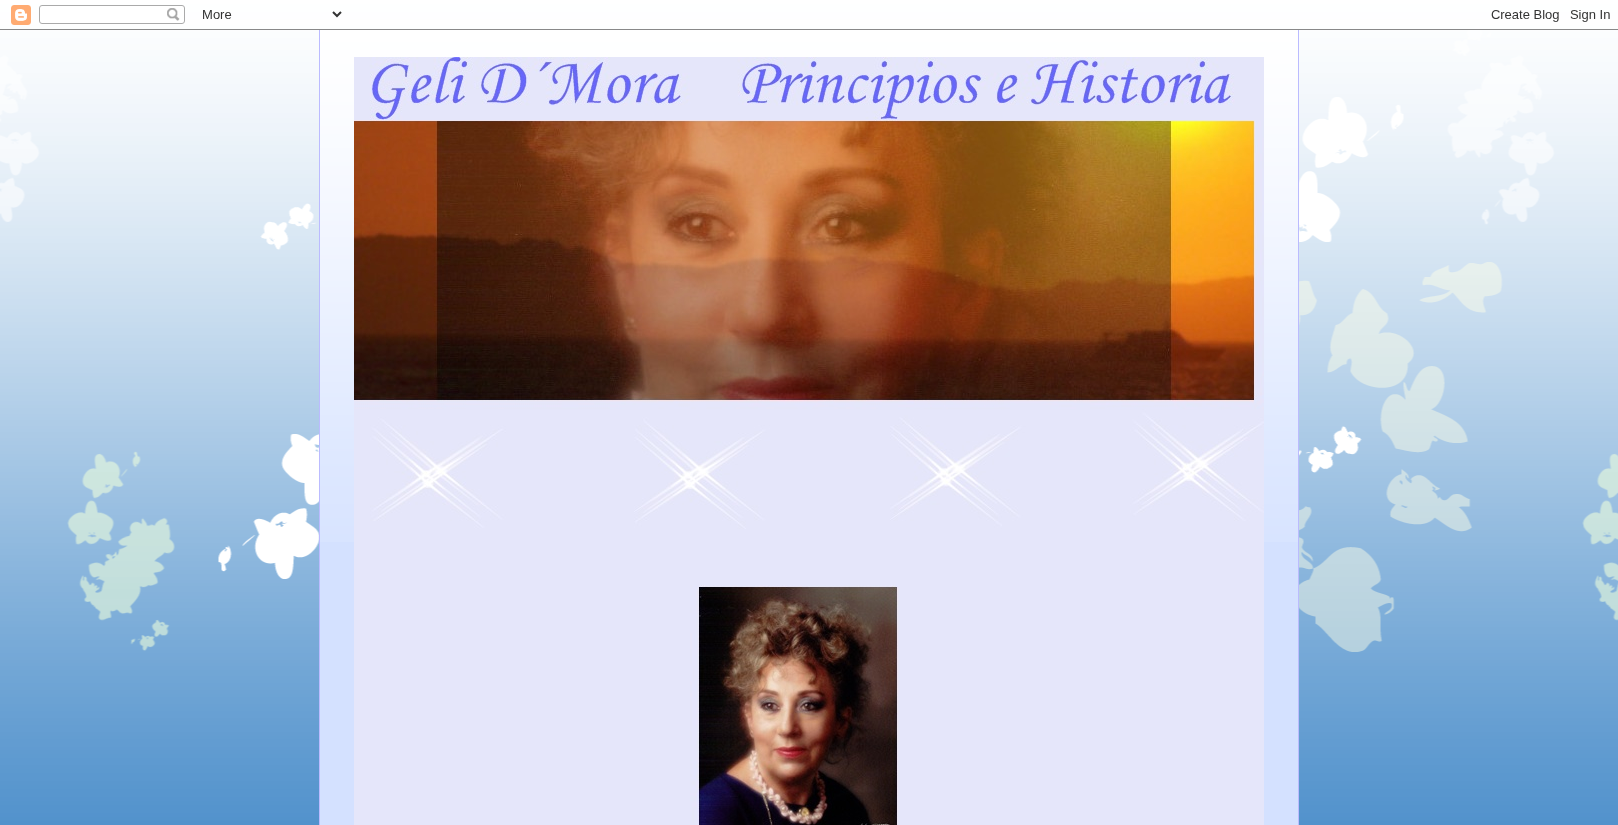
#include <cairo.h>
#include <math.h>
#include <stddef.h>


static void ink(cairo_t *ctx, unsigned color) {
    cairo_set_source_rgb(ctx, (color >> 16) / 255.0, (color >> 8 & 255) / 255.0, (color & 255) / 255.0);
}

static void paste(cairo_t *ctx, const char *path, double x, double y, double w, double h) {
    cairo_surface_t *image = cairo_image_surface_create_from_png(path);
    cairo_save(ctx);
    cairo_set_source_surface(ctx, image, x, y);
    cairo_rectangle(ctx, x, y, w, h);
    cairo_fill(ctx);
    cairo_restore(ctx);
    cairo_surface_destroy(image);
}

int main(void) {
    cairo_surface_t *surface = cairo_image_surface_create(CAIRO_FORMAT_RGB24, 1618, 825);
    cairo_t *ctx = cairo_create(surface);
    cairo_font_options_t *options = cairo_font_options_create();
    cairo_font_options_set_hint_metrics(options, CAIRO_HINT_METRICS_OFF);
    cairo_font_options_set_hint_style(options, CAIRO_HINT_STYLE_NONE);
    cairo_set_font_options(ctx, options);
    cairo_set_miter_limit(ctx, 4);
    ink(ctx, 0x3D85C6);
    cairo_paint(ctx);
    paste(ctx, "media/1.png", 0, 0, 1618, 825);
    paste(ctx, "media/2.png", 0, 5, 1618, 25);
    ink(ctx, 0xD4E1FF);
    cairo_rectangle(ctx, 320, 37, 978, 788);
    cairo_fill(ctx);
    paste(ctx, "media/3.png", 320, 30, 978, 512);
    ink(ctx, 0xBBBBFF);
    cairo_rectangle(ctx, 1298, 30, 1, 795);
    cairo_fill(ctx);
    cairo_rectangle(ctx, 319, 30, 1, 795);
    cairo_fill(ctx);
    paste(ctx, "media/4.png", 354, 57, 910, 768);
    cairo_surface_write_to_png(surface, "image.png");
    cairo_font_options_destroy(options);
    cairo_destroy(ctx);
    cairo_surface_destroy(surface);
    return 0;
}
